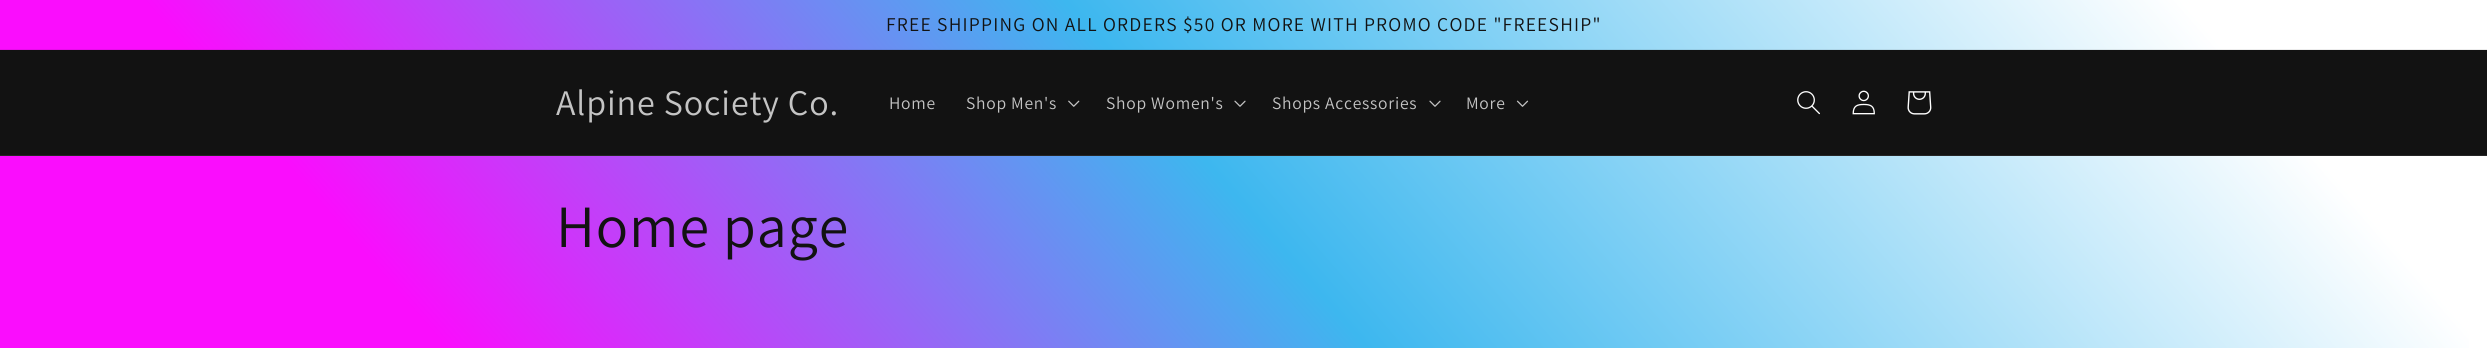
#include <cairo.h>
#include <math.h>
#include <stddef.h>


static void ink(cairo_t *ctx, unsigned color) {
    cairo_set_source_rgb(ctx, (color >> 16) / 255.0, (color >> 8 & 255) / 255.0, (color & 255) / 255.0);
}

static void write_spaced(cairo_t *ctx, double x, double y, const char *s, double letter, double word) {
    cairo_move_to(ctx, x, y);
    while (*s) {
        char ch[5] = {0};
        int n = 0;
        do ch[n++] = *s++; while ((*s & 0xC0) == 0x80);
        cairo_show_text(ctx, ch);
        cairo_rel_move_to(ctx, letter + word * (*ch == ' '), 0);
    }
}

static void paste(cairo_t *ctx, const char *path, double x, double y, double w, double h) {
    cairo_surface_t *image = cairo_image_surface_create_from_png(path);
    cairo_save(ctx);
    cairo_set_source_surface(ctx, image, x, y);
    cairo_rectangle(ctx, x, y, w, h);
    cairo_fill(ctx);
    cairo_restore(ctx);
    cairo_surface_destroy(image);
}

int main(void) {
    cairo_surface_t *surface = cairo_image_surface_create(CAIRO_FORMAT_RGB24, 2487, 348);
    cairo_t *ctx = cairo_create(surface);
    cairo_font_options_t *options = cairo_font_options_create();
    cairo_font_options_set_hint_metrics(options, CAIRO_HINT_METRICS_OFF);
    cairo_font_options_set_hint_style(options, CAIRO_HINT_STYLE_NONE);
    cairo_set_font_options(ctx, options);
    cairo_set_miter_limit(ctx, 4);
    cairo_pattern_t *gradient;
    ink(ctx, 0xFFFFFF);
    cairo_paint(ctx);
    gradient = cairo_pattern_create_linear(2039, -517, 449, 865);
    cairo_pattern_add_color_stop_rgba(gradient, 0.11, 1, 1, 1, 1);
    cairo_pattern_add_color_stop_rgba(gradient, 0.51, 0.239, 0.718, 0.937, 1);
    cairo_pattern_add_color_stop_rgba(gradient, 0.84, 0.98, 0.051, 0.992, 1);
    cairo_set_source(ctx, gradient);
    cairo_pattern_destroy(gradient);
    cairo_rectangle(ctx, 0, 0, 2469, 348);
    cairo_fill(ctx);
    gradient = cairo_pattern_create_linear(2039, -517, 449, 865);
    cairo_pattern_add_color_stop_rgba(gradient, 0.11, 0.925, 0.925, 0.925, 1);
    cairo_pattern_add_color_stop_rgba(gradient, 0.51, 0.227, 0.667, 0.867, 1);
    cairo_pattern_add_color_stop_rgba(gradient, 0.84, 0.906, 0.051, 0.918, 1);
    cairo_set_source(ctx, gradient);
    cairo_pattern_destroy(gradient);
    cairo_rectangle(ctx, 0, 49, 2487, 1);
    cairo_fill(ctx);
    cairo_select_font_face(ctx, "Assistant", CAIRO_FONT_SLANT_NORMAL, CAIRO_FONT_WEIGHT_NORMAL);
    cairo_set_font_size(ctx, 19.5);
    ink(ctx, 0x121212);
    write_spaced(ctx, 886, 31, "FREE SHIPPING ON ALL ORDERS $50 OR MORE WITH PROMO CODE \"FREESHIP\"", 1.25, 0);
    cairo_rectangle(ctx, 0, 50, 2487, 105);
    cairo_fill(ctx);
    ink(ctx, 0x252525);
    cairo_rectangle(ctx, 0, 155, 2487, 1);
    cairo_fill(ctx);
    cairo_set_font_size(ctx, 36);
    ink(ctx, 0xC4C4C4);
    write_spaced(ctx, 556, 115, "Alpine Society Co.", 0.9, 0);
    cairo_set_font_size(ctx, 17.5);
    write_spaced(ctx, 889, 109, "Home", 0.75, 0);
    write_spaced(ctx, 966, 109, "Shop Men's", 0.75, 0);
    paste(ctx, "media/1.png", 1068, 100, 12, 7);
    write_spaced(ctx, 1106, 109, "Shop Women's", 0.75, 0);
    paste(ctx, "media/2.png", 1234, 100, 12, 7);
    write_spaced(ctx, 1272, 109, "Shops Accessories", 0.75, 0);
    paste(ctx, "media/2.png", 1429, 100, 12, 7);
    write_spaced(ctx, 1466, 109, "More", 0.75, 0);
    paste(ctx, "media/3.png", 1516, 100, 13, 7);
    paste(ctx, "media/4.png", 1797, 91, 23, 24);
    paste(ctx, "media/5.png", 1852, 90, 23, 25);
    paste(ctx, "media/6.png", 1907, 91, 25, 24);
    cairo_set_font_size(ctx, 60);
    ink(ctx, 0x121212);
    write_spaced(ctx, 556, 247, "Home page", 0.9, 0);
    cairo_surface_write_to_png(surface, "image.png");
    cairo_font_options_destroy(options);
    cairo_destroy(ctx);
    cairo_surface_destroy(surface);
    return 0;
}
